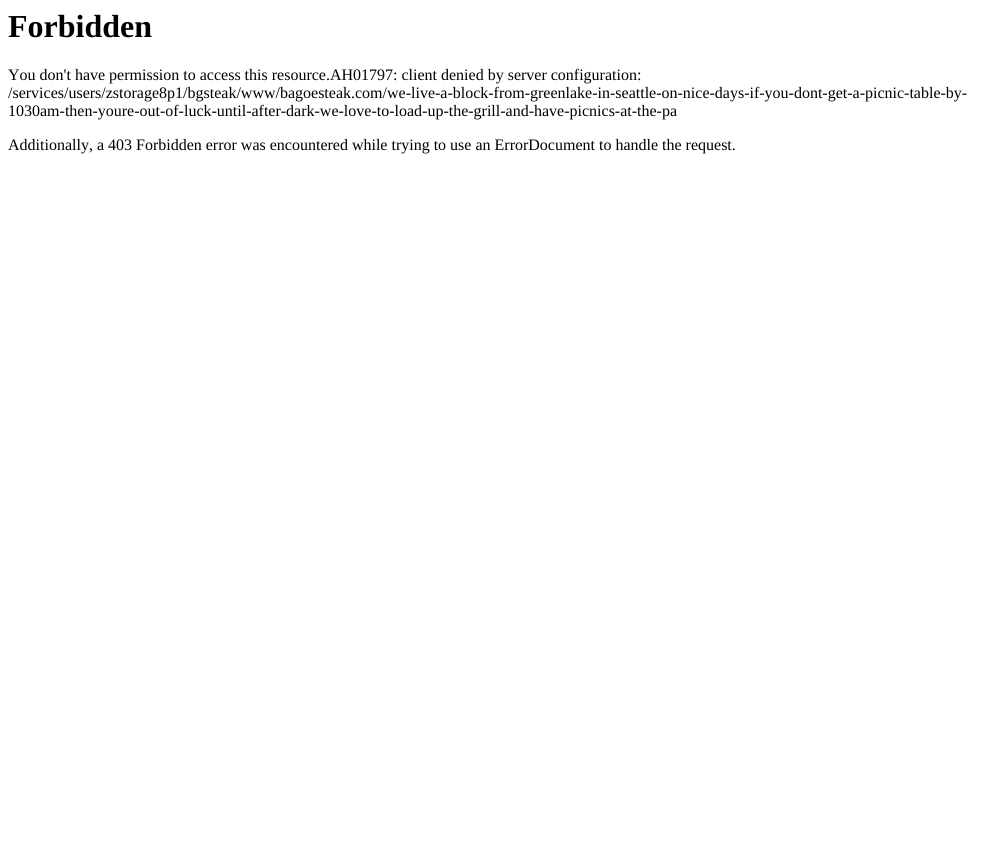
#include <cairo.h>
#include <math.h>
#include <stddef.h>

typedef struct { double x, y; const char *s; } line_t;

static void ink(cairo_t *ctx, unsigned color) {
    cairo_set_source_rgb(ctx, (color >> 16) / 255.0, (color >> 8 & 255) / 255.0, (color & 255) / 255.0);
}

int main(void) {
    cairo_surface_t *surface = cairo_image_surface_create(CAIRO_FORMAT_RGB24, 1008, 852);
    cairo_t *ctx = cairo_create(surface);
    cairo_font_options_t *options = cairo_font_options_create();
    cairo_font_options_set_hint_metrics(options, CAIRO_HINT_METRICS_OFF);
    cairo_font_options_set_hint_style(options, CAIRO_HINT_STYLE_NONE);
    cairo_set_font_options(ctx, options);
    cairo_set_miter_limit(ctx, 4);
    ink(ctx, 0xFFFFFF);
    cairo_paint(ctx);
    cairo_select_font_face(ctx, "Liberation Serif", CAIRO_FONT_SLANT_NORMAL, CAIRO_FONT_WEIGHT_BOLD);
    cairo_set_font_size(ctx, 32);
    ink(ctx, 0x000000);
    cairo_move_to(ctx, 8, 37);
    cairo_show_text(ctx, "Forbidden");
    cairo_select_font_face(ctx, "Liberation Serif", CAIRO_FONT_SLANT_NORMAL, CAIRO_FONT_WEIGHT_NORMAL);
    cairo_set_font_size(ctx, 16);
    {
        static const line_t items[] = {
            {8, 80, "You don't have permission to access this resource.AH01797: client denied by server configuration:"},
            {8, 98, "/services/users/zstorage8p1/bgsteak/www/bagoesteak.com/we-live-a-block-from-greenlake-in-seattle-on-nice-days-if-you-dont-get-a-picnic-table-by-"},
            {8, 116, "1030am-then-youre-out-of-luck-until-after-dark-we-love-to-load-up-the-grill-and-have-picnics-at-the-pa"},
            {8, 150, "Additionally, a 403 Forbidden error was encountered while trying to use an ErrorDocument to handle the request."},
        };
        for (size_t i = 0; i < sizeof items / sizeof *items; i++) {
            cairo_move_to(ctx, items[i].x, items[i].y);
            cairo_show_text(ctx, items[i].s);
        }
    }
    cairo_surface_write_to_png(surface, "image.png");
    cairo_font_options_destroy(options);
    cairo_destroy(ctx);
    cairo_surface_destroy(surface);
    return 0;
}
